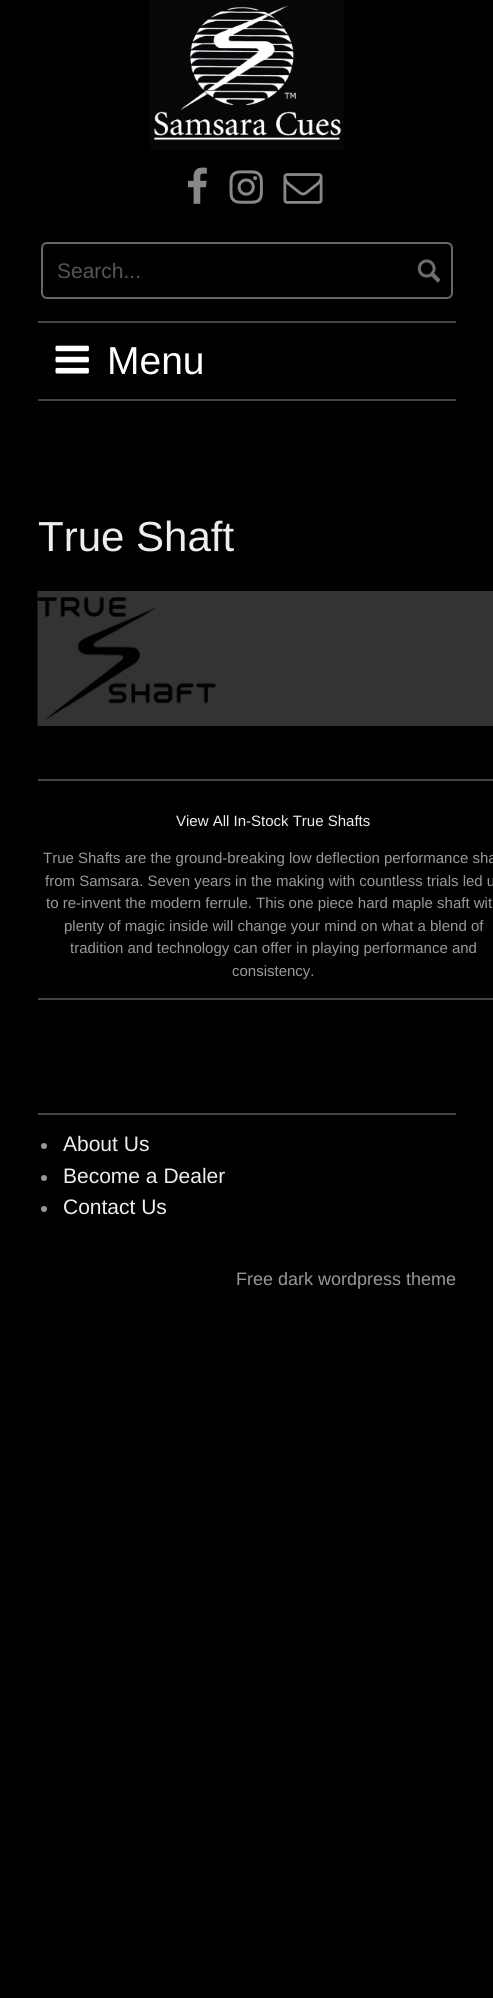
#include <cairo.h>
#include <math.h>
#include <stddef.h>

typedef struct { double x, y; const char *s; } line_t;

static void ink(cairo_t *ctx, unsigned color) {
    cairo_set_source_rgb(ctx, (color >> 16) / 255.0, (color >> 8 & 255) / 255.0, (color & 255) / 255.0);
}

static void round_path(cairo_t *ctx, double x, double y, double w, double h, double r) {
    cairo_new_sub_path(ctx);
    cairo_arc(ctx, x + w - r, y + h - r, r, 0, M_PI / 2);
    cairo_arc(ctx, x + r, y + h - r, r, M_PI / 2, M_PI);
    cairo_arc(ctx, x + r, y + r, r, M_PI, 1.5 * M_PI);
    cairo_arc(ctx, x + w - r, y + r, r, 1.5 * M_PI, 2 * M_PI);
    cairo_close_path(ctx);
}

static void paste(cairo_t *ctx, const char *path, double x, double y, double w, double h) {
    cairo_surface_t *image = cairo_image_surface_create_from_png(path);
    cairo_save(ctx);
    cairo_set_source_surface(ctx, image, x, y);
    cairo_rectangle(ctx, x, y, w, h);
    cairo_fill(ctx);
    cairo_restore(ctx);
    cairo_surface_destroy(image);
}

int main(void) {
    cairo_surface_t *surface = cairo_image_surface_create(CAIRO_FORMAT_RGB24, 493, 1998);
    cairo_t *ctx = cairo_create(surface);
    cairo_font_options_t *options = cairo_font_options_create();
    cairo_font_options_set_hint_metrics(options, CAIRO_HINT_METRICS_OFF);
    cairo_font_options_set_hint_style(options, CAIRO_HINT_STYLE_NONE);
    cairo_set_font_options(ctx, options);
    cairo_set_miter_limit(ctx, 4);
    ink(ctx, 0x000000);
    cairo_paint(ctx);
    paste(ctx, "media/1.png", 150, 0, 194, 150);
    paste(ctx, "media/2.png", 188, 167, 19, 37);
    paste(ctx, "media/3.png", 229, 170, 34, 34);
    paste(ctx, "media/4.png", 283, 173, 40, 31);
    round_path(ctx, 42, 243, 410, 55, 5);
    ink(ctx, 0x666666);
    cairo_stroke(ctx);
    cairo_select_font_face(ctx, "Liberation Sans", CAIRO_FONT_SLANT_NORMAL, CAIRO_FONT_WEIGHT_NORMAL);
    cairo_set_font_size(ctx, 21);
    ink(ctx, 0x555555);
    cairo_move_to(ctx, 57, 278);
    cairo_show_text(ctx, "Search...");
    paste(ctx, "media/5.png", 417, 259, 24, 24);
    ink(ctx, 0x444444);
    cairo_rectangle(ctx, 38, 321, 418, 2);
    cairo_fill(ctx);
    cairo_rectangle(ctx, 38, 399, 418, 2);
    cairo_fill(ctx);
    paste(ctx, "media/6.png", 55, 345, 34, 29);
    cairo_set_font_size(ctx, 39);
    ink(ctx, 0xFFFFFF);
    cairo_move_to(ctx, 107, 374);
    cairo_show_text(ctx, "Menu");
    cairo_set_font_size(ctx, 42);
    ink(ctx, 0xEEEEEE);
    cairo_move_to(ctx, 38, 551);
    cairo_show_text(ctx, "True Shaft");
    paste(ctx, "media/7.png", 37, 591, 456, 135);
    ink(ctx, 0x444444);
    cairo_rectangle(ctx, 38, 779, 455, 2);
    cairo_fill(ctx);
    cairo_set_font_size(ctx, 15);
    ink(ctx, 0xEEEEEE);
    cairo_move_to(ctx, 176, 826);
    cairo_show_text(ctx, "View All In-Stock True Shafts");
    ink(ctx, 0x999999);
    {
        static const line_t items[] = {
            {43, 863, "True Shafts are the ground-breaking low deflection performance sha"},
            {45, 886, "from Samsara. Seven years in the making with countless trials led u"},
            {46, 908, "to re-invent the modern ferrule. This one piece hard maple shaft wit"},
            {64, 931, "plenty of magic inside will change your mind on what a blend of"},
            {70, 953, "tradition and technology can offer in playing performance and"},
            {232, 976, "consistency."},
        };
        for (size_t i = 0; i < sizeof items / sizeof *items; i++) {
            cairo_move_to(ctx, items[i].x, items[i].y);
            cairo_show_text(ctx, items[i].s);
        }
    }
    ink(ctx, 0x444444);
    cairo_rectangle(ctx, 38, 998, 455, 2);
    cairo_fill(ctx);
    cairo_rectangle(ctx, 38, 1113, 418, 2);
    cairo_fill(ctx);
    ink(ctx, 0x999999);
    cairo_arc(ctx, 44, 1146, 3, 0, 2 * M_PI);
    cairo_fill(ctx);
    cairo_set_font_size(ctx, 21);
    ink(ctx, 0xEEEEEE);
    cairo_move_to(ctx, 63, 1151);
    cairo_show_text(ctx, "About Us");
    ink(ctx, 0x999999);
    cairo_new_path(ctx);
    cairo_arc(ctx, 44, 1178, 3, 0, 2 * M_PI);
    cairo_fill(ctx);
    ink(ctx, 0xEEEEEE);
    cairo_move_to(ctx, 63, 1183);
    cairo_show_text(ctx, "Become a Dealer");
    ink(ctx, 0x999999);
    cairo_new_path(ctx);
    cairo_arc(ctx, 44, 1209, 3, 0, 2 * M_PI);
    cairo_fill(ctx);
    ink(ctx, 0xEEEEEE);
    cairo_move_to(ctx, 63, 1214);
    cairo_show_text(ctx, "Contact Us");
    cairo_set_font_size(ctx, 18);
    ink(ctx, 0x999999);
    cairo_move_to(ctx, 236, 1285);
    cairo_show_text(ctx, "Free dark wordpress theme");
    cairo_surface_write_to_png(surface, "image.png");
    cairo_font_options_destroy(options);
    cairo_destroy(ctx);
    cairo_surface_destroy(surface);
    return 0;
}
